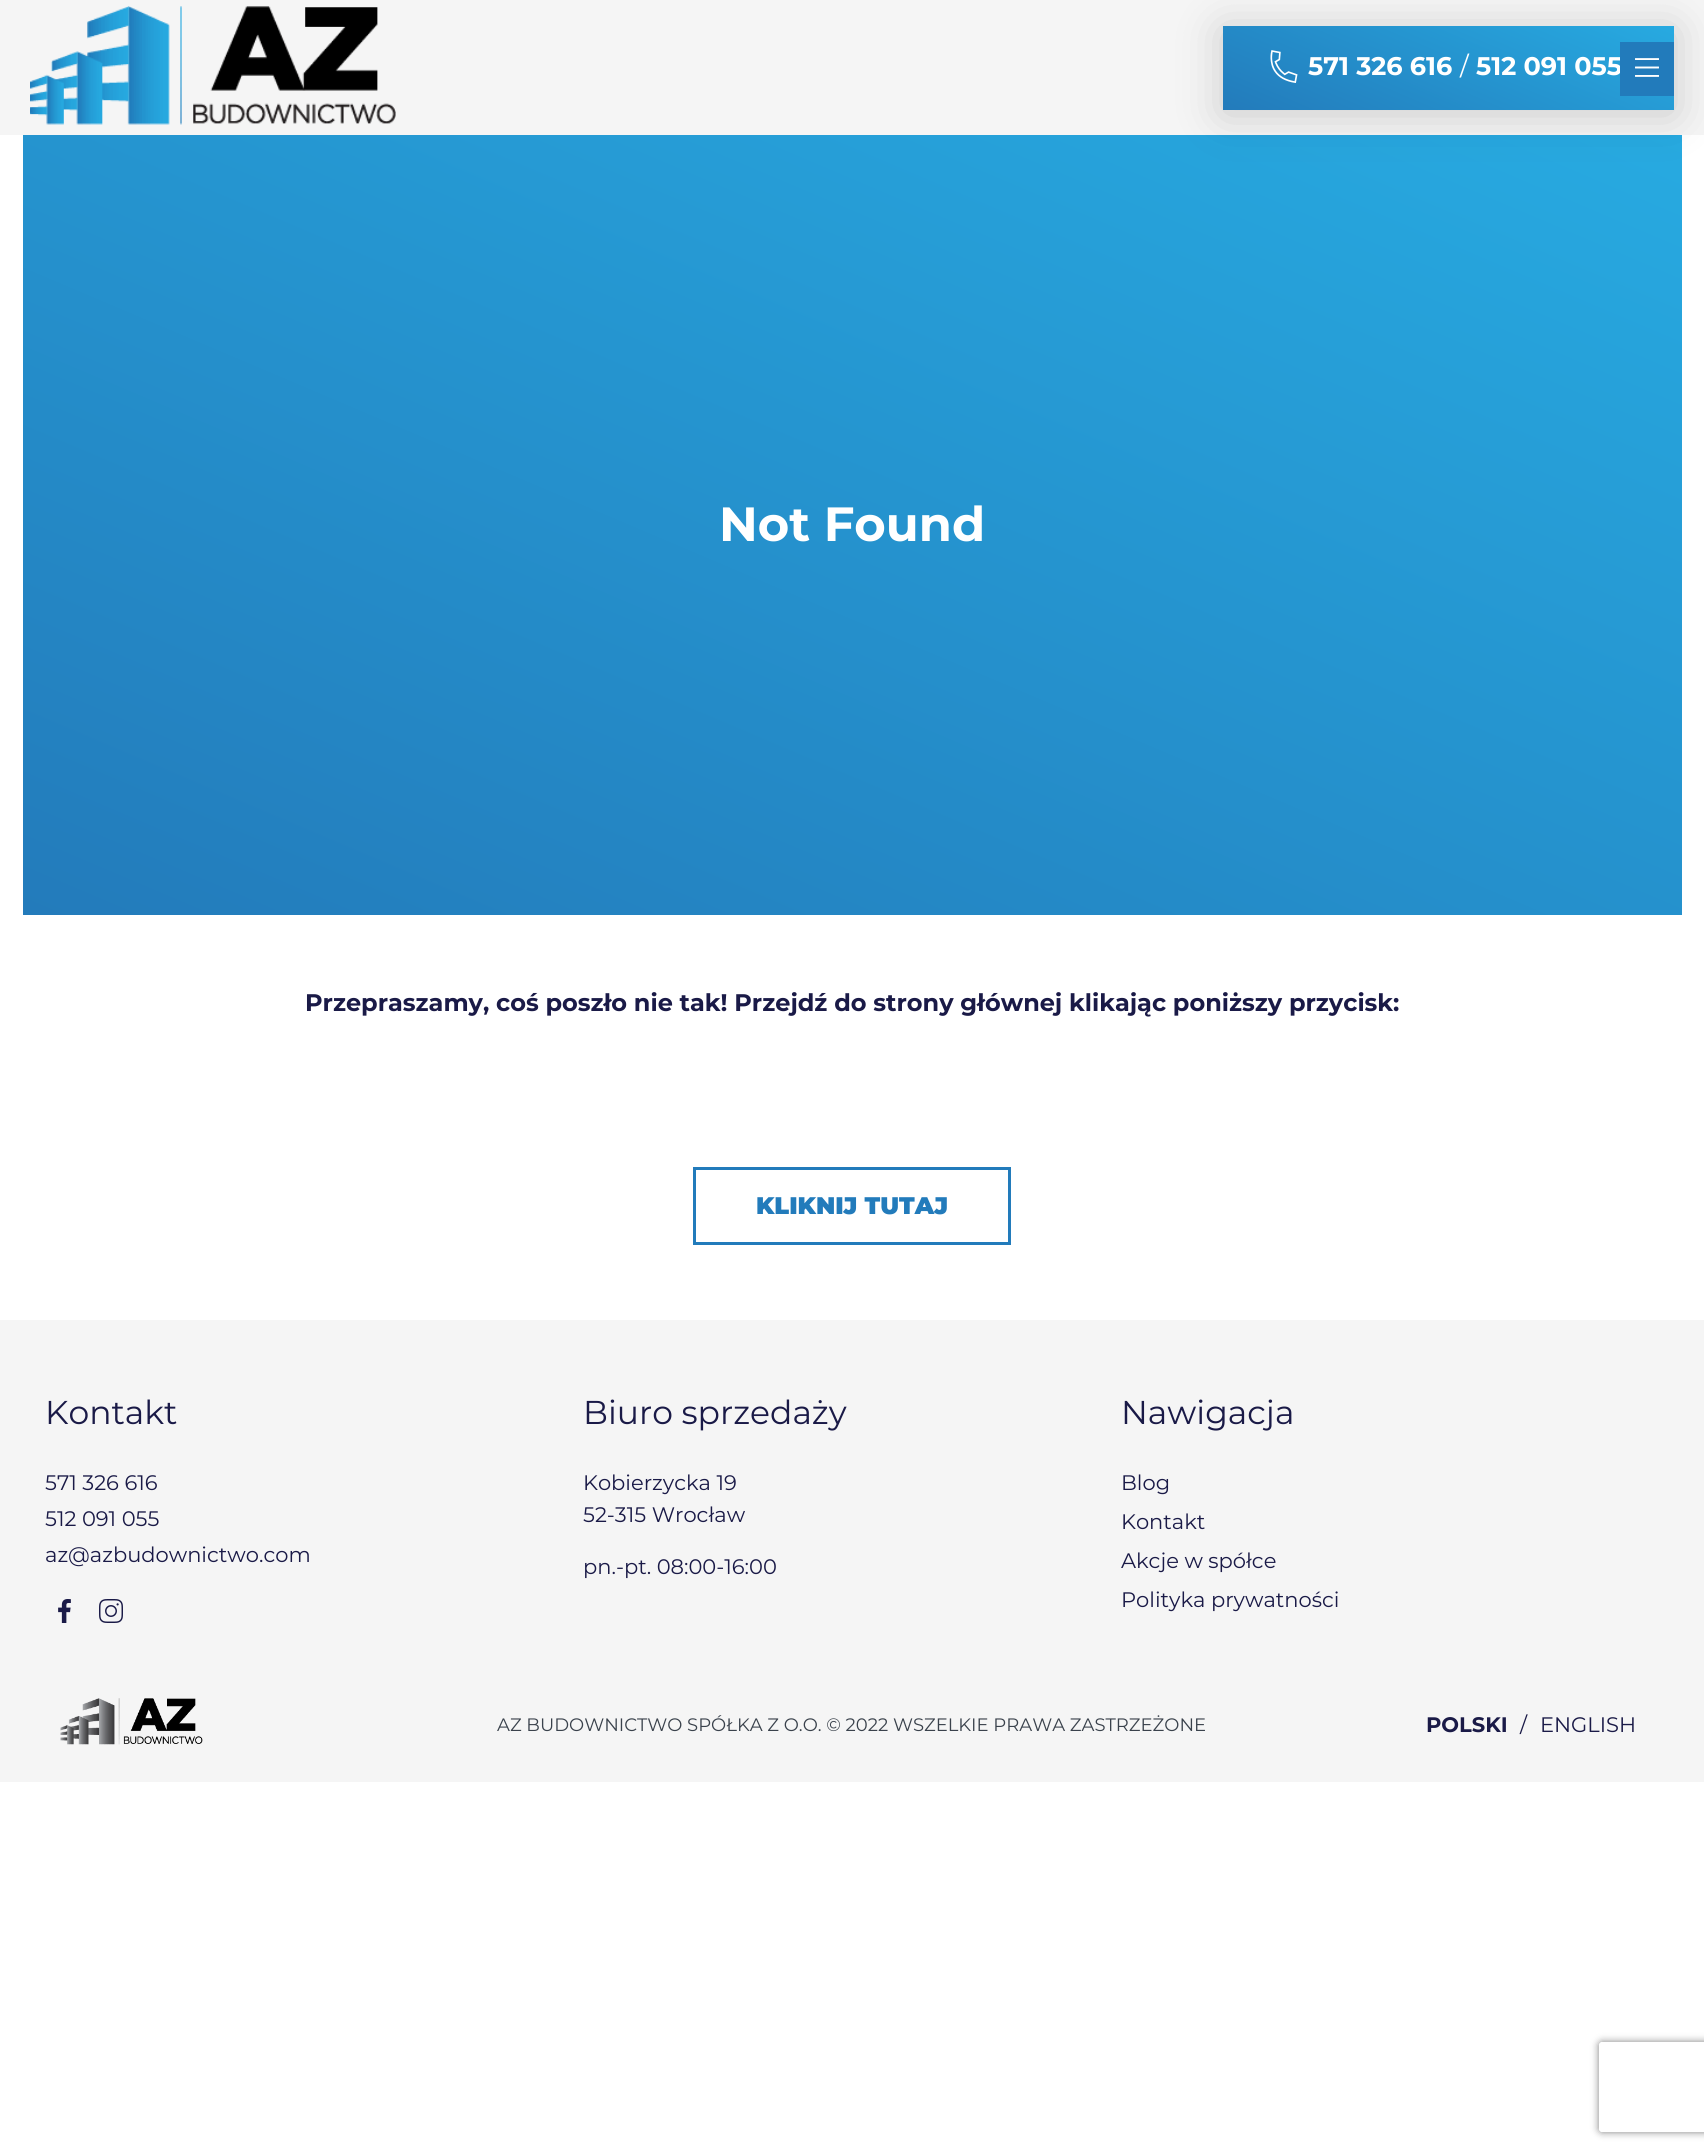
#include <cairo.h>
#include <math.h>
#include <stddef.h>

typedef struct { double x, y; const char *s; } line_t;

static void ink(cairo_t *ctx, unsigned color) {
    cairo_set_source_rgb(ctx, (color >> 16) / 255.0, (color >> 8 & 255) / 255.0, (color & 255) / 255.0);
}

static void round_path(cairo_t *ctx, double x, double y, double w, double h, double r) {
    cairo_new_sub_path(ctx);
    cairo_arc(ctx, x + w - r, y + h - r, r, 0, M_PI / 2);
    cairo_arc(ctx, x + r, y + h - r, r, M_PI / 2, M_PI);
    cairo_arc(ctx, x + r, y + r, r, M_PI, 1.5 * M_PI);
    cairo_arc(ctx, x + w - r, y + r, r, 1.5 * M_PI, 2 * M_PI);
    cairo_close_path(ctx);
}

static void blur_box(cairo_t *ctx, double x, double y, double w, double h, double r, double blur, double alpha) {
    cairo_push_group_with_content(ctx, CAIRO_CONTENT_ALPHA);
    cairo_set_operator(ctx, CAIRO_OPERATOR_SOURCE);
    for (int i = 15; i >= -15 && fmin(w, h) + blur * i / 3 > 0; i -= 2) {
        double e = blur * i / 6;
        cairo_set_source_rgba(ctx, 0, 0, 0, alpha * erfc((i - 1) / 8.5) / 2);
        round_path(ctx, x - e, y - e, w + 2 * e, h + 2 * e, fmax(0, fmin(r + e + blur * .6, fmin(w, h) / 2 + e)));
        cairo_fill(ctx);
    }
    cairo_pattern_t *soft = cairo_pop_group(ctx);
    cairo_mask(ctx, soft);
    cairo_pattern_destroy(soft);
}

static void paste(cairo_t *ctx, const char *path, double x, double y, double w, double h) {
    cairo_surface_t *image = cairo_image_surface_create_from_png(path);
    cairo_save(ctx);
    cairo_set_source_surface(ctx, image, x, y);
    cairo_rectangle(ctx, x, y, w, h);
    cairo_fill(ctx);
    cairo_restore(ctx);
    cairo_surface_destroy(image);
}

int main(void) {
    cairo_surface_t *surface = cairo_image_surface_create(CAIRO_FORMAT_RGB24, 1704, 2152);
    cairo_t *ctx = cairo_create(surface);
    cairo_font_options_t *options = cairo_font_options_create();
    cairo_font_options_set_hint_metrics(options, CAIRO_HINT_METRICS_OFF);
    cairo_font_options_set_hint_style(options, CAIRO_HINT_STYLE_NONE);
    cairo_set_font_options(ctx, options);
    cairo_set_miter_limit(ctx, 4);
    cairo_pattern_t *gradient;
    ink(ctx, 0xFFFFFF);
    cairo_paint(ctx);
    ink(ctx, 0xF5F5F5);
    cairo_rectangle(ctx, 0, 0, 1704, 135);
    cairo_fill(ctx);
    paste(ctx, "media/1.png", 30, 6, 366, 119);
    gradient = cairo_pattern_create_linear(585, 1154, 1119, -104);
    cairo_pattern_add_color_stop_rgba(gradient, 0, 0.137, 0.482, 0.733, 1);
    cairo_pattern_add_color_stop_rgba(gradient, 1, 0.153, 0.667, 0.882, 1);
    cairo_set_source(ctx, gradient);
    cairo_pattern_destroy(gradient);
    cairo_rectangle(ctx, 23, 135, 1659, 780);
    cairo_fill(ctx);
    ink(ctx, 0x000000);
    blur_box(ctx, 1223, 30, 451, 84, 0, 22, 0.18);
    gradient = cairo_pattern_create_linear(1399, 184, 1498, -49);
    cairo_pattern_add_color_stop_rgba(gradient, 0, 0.137, 0.482, 0.733, 1);
    cairo_pattern_add_color_stop_rgba(gradient, 1, 0.153, 0.667, 0.882, 1);
    cairo_set_source(ctx, gradient);
    cairo_pattern_destroy(gradient);
    cairo_rectangle(ctx, 1223, 26, 451, 84);
    cairo_fill(ctx);
    paste(ctx, "media/2.png", 1270, 50, 28, 33);
    cairo_select_font_face(ctx, "Montserrat", CAIRO_FONT_SLANT_NORMAL, CAIRO_FONT_WEIGHT_BOLD);
    cairo_set_font_size(ctx, 25.5);
    ink(ctx, 0xFFFFFF);
    cairo_move_to(ctx, 1308, 75);
    cairo_show_text(ctx, "571 326 616");
    cairo_select_font_face(ctx, "Montserrat", CAIRO_FONT_SLANT_NORMAL, CAIRO_FONT_WEIGHT_NORMAL);
    cairo_move_to(ctx, 1460, 75);
    cairo_show_text(ctx, "/");
    cairo_select_font_face(ctx, "Montserrat", CAIRO_FONT_SLANT_NORMAL, CAIRO_FONT_WEIGHT_BOLD);
    cairo_move_to(ctx, 1476, 75);
    cairo_show_text(ctx, "512 091 055");
    ink(ctx, 0x227BBB);
    cairo_rectangle(ctx, 1620, 42, 54, 54);
    cairo_fill(ctx);
    paste(ctx, "media/3.png", 1635, 58, 24, 19);
    cairo_set_font_size(ctx, 48);
    ink(ctx, 0xFFFFFF);
    cairo_move_to(ctx, 719, 541);
    cairo_show_text(ctx, "Not Found");
    cairo_set_font_size(ctx, 24);
    ink(ctx, 0x1A1A47);
    cairo_move_to(ctx, 305, 1011);
    cairo_show_text(ctx, "Przepraszamy, coś poszło nie tak! Przejdź do strony głównej klikając poniższy przycisk:");
    cairo_rectangle(ctx, 694.5, 1168.5, 315, 75);
    ink(ctx, 0x227BBB);
    cairo_set_line_width(ctx, 3);
    cairo_stroke(ctx);
    cairo_select_font_face(ctx, "Montserrat Black", CAIRO_FONT_SLANT_NORMAL, CAIRO_FONT_WEIGHT_NORMAL);
    cairo_move_to(ctx, 756, 1214);
    cairo_show_text(ctx, "KLIKNIJ TUTAJ");
    ink(ctx, 0xF5F5F5);
    cairo_rectangle(ctx, 0, 1320, 1704, 462);
    cairo_fill(ctx);
    cairo_select_font_face(ctx, "Montserrat", CAIRO_FONT_SLANT_NORMAL, CAIRO_FONT_WEIGHT_NORMAL);
    cairo_set_font_size(ctx, 33);
    ink(ctx, 0x1A1A47);
    cairo_move_to(ctx, 45, 1424);
    cairo_show_text(ctx, "Kontakt");
    cairo_set_font_size(ctx, 21);
    {
        static const line_t items[] = {
            {45, 1490, "571 326 616"},
            {45, 1526, "512 091 055"},
            {45, 1562, "az@azbudownictwo.com"},
        };
        for (size_t i = 0; i < sizeof items / sizeof *items; i++) {
            cairo_move_to(ctx, items[i].x, items[i].y);
            cairo_show_text(ctx, items[i].s);
        }
    }
    paste(ctx, "media/4.png", 58, 1599, 13, 24);
    paste(ctx, "media/5.png", 99, 1599, 24, 24);
    cairo_set_font_size(ctx, 33);
    cairo_move_to(ctx, 583, 1424);
    cairo_show_text(ctx, "Biuro sprzedaży");
    cairo_set_font_size(ctx, 21);
    {
        static const line_t items[] = {
            {583, 1490, "Kobierzycka 19"},
            {583, 1522, "52-315 Wrocław"},
            {583, 1574, "pn.-pt. 08:00-16:00"},
        };
        for (size_t i = 0; i < sizeof items / sizeof *items; i++) {
            cairo_move_to(ctx, items[i].x, items[i].y);
            cairo_show_text(ctx, items[i].s);
        }
    }
    cairo_set_font_size(ctx, 33);
    cairo_move_to(ctx, 1121, 1424);
    cairo_show_text(ctx, "Nawigacja");
    cairo_set_font_size(ctx, 21);
    {
        static const line_t items[] = {
            {1121, 1490, "Blog"},
            {1121, 1529, "Kontakt"},
            {1121, 1568, "Akcje w spółce"},
            {1121, 1607, "Polityka prywatności"},
        };
        for (size_t i = 0; i < sizeof items / sizeof *items; i++) {
            cairo_move_to(ctx, items[i].x, items[i].y);
            cairo_show_text(ctx, items[i].s);
        }
    }
    paste(ctx, "media/6.png", 60, 1698, 143, 47);
    cairo_set_font_size(ctx, 18);
    ink(ctx, 0x3A424C);
    cairo_move_to(ctx, 497, 1731);
    cairo_show_text(ctx, "AZ BUDOWNICTWO SPÓŁKA Z O.O. © 2022 WSZELKIE PRAWA ZASTRZEŻONE");
    cairo_select_font_face(ctx, "Montserrat", CAIRO_FONT_SLANT_NORMAL, CAIRO_FONT_WEIGHT_BOLD);
    cairo_set_font_size(ctx, 21);
    ink(ctx, 0x1A1A47);
    cairo_move_to(ctx, 1426, 1732);
    cairo_show_text(ctx, "POLSKI");
    cairo_select_font_face(ctx, "Montserrat", CAIRO_FONT_SLANT_NORMAL, CAIRO_FONT_WEIGHT_NORMAL);
    cairo_move_to(ctx, 1520, 1732);
    cairo_show_text(ctx, "/");
    cairo_move_to(ctx, 1540, 1732);
    cairo_show_text(ctx, "ENGLISH");
    cairo_save(ctx);
    cairo_set_fill_rule(ctx, CAIRO_FILL_RULE_EVEN_ODD);
    cairo_new_path(ctx);
    cairo_move_to(ctx, 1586, 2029);
    cairo_line_to(ctx, 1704, 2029);
    cairo_line_to(ctx, 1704, 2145);
    cairo_line_to(ctx, 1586, 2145);
    cairo_close_path(ctx);
    cairo_move_to(ctx, 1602, 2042);
    cairo_line_to(ctx, 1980, 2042);
    cairo_curve_to(ctx, 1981.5, 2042, 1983, 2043.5, 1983, 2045);
    cairo_line_to(ctx, 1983, 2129);
    cairo_curve_to(ctx, 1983, 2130.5, 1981.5, 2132, 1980, 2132);
    cairo_line_to(ctx, 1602, 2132);
    cairo_curve_to(ctx, 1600.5, 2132, 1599, 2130.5, 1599, 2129);
    cairo_line_to(ctx, 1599, 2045);
    cairo_curve_to(ctx, 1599, 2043.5, 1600.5, 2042, 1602, 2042);
    cairo_close_path(ctx);
    cairo_clip(ctx);
    ink(ctx, 0x808080);
    blur_box(ctx, 1599, 2042, 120, 90, 3, 4, 1);
    cairo_restore(ctx);
    cairo_surface_write_to_png(surface, "image.png");
    cairo_font_options_destroy(options);
    cairo_destroy(ctx);
    cairo_surface_destroy(surface);
    return 0;
}
